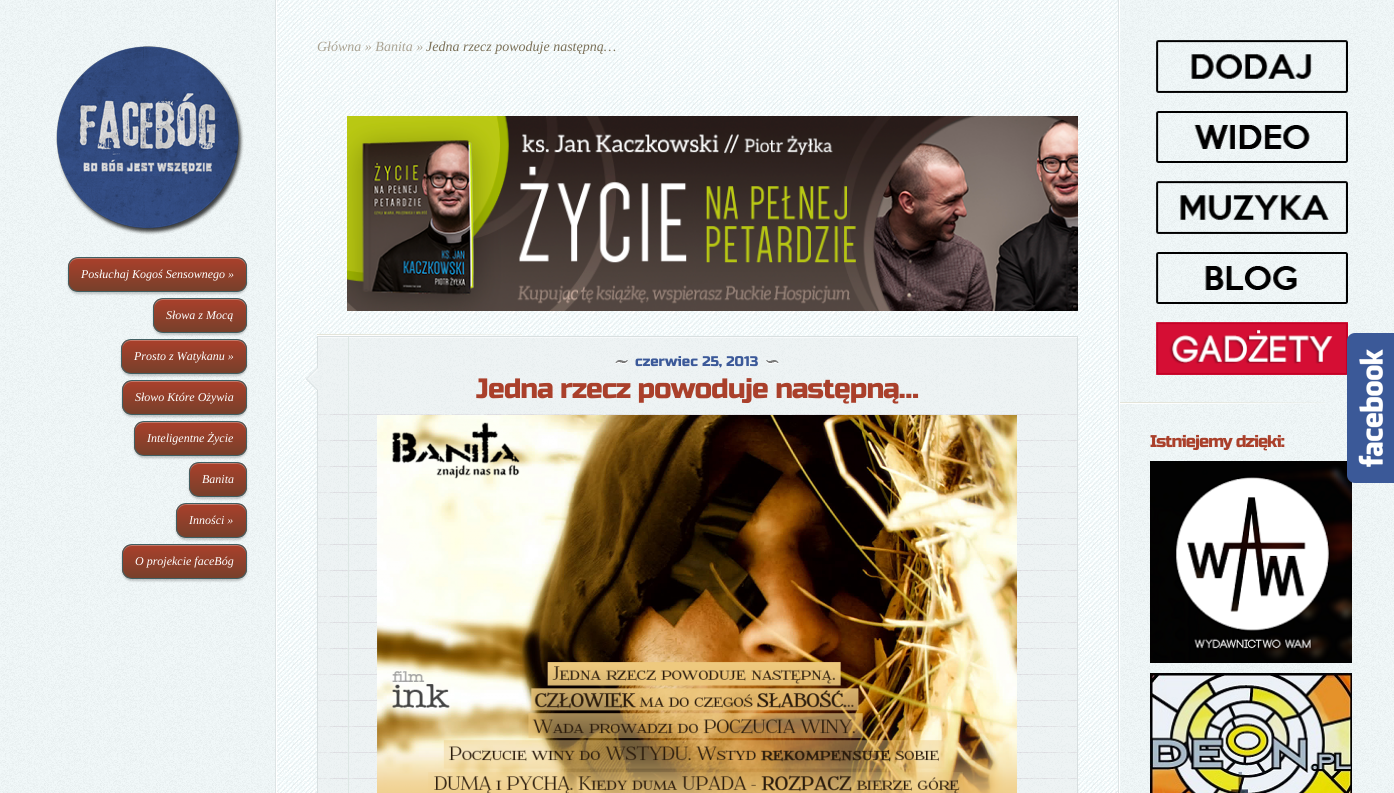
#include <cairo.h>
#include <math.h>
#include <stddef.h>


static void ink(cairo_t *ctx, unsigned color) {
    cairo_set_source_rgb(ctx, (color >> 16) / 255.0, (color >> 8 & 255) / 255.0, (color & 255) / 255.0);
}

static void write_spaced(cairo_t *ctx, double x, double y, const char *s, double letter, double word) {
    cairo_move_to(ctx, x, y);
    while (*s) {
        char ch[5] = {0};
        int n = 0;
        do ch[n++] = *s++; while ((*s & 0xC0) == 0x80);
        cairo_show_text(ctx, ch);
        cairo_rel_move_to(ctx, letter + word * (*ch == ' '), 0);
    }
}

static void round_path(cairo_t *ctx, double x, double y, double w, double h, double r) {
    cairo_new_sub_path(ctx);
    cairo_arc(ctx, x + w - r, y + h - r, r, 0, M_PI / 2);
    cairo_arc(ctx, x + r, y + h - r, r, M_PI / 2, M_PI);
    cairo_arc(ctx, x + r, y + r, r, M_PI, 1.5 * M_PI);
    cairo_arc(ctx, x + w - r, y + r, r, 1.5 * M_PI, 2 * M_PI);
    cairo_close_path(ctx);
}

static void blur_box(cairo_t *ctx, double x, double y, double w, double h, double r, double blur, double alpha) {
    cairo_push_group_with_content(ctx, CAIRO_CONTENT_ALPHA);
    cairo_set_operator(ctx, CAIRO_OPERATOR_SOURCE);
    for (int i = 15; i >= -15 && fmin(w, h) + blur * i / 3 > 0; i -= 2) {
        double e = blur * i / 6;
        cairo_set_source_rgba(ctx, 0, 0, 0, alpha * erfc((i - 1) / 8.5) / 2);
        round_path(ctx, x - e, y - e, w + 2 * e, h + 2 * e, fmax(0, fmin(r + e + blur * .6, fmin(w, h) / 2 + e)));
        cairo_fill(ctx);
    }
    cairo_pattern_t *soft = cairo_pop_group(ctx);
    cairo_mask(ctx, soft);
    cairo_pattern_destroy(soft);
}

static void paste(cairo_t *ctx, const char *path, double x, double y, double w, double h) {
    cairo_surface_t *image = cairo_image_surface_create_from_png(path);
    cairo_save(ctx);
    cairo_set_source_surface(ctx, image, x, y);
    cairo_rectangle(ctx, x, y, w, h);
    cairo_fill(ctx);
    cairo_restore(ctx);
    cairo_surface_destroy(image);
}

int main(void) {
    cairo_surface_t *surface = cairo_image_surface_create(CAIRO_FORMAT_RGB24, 1394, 793);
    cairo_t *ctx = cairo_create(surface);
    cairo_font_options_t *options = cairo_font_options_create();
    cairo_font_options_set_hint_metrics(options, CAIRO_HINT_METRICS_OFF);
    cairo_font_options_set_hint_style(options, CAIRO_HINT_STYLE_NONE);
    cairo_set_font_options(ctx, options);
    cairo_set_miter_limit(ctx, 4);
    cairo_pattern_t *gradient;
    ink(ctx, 0xFFFFFF);
    cairo_paint(ctx);
    paste(ctx, "media/1.png", 0, 0, 1394, 793);
    paste(ctx, "media/2.png", 277, 0, 841, 793);
    paste(ctx, "media/3.png", 56, 46, 188, 189);
    ink(ctx, 0x000000);
    blur_box(ctx, 68, 259, 179, 35, 10, 1, 0.2);
    cairo_save(ctx);
    round_path(ctx, 68, 257, 179, 35, 10);
    cairo_clip(ctx);
    gradient = cairo_pattern_create_linear(158, 258, 158, 291);
    cairo_pattern_add_color_stop_rgba(gradient, 0, 0.667, 0.251, 0.169, 1);
    cairo_pattern_add_color_stop_rgba(gradient, 1, 0.467, 0.251, 0.169, 1);
    cairo_set_source(ctx, gradient);
    cairo_pattern_destroy(gradient);
    cairo_rectangle(ctx, 68, 258, 179, 33);
    cairo_fill(ctx);
    cairo_restore(ctx);
    cairo_set_source_rgba(ctx, 1, 1, 1, 0.3);
    cairo_new_path(ctx);
    cairo_move_to(ctx, 78, 259);
    cairo_line_to(ctx, 237, 259);
    cairo_curve_to(ctx, 242, 259, 246, 263, 246, 268);
    cairo_line_to(ctx, 246, 267);
    cairo_curve_to(ctx, 246, 262, 242, 258, 237, 258);
    cairo_line_to(ctx, 78, 258);
    cairo_curve_to(ctx, 73, 258, 69, 262, 69, 267);
    cairo_line_to(ctx, 69, 268);
    cairo_curve_to(ctx, 69, 263, 73, 259, 78, 259);
    cairo_close_path(ctx);
    cairo_fill(ctx);
    round_path(ctx, 68.5, 257.5, 178, 34, 9.5);
    ink(ctx, 0x415F62);
    cairo_set_line_width(ctx, 1);
    cairo_stroke(ctx);
    cairo_select_font_face(ctx, "Liberation Serif", CAIRO_FONT_SLANT_ITALIC, CAIRO_FONT_WEIGHT_NORMAL);
    cairo_set_font_size(ctx, 12);
    ink(ctx, 0xFFFFFF);
    cairo_move_to(ctx, 81, 278);
    cairo_show_text(ctx, "Posłuchaj Kogoś Sensownego »");
    ink(ctx, 0x000000);
    blur_box(ctx, 153, 300, 94, 35, 10, 1, 0.2);
    cairo_save(ctx);
    round_path(ctx, 153, 298, 94, 35, 10);
    cairo_clip(ctx);
    gradient = cairo_pattern_create_linear(200, 299, 200, 332);
    cairo_pattern_add_color_stop_rgba(gradient, 0, 0.667, 0.251, 0.169, 1);
    cairo_pattern_add_color_stop_rgba(gradient, 1, 0.467, 0.251, 0.169, 1);
    cairo_set_source(ctx, gradient);
    cairo_pattern_destroy(gradient);
    cairo_rectangle(ctx, 153, 299, 94, 33);
    cairo_fill(ctx);
    cairo_restore(ctx);
    cairo_set_source_rgba(ctx, 1, 1, 1, 0.3);
    cairo_new_path(ctx);
    cairo_move_to(ctx, 163, 300);
    cairo_line_to(ctx, 237, 300);
    cairo_curve_to(ctx, 242, 300, 246, 304, 246, 309);
    cairo_curve_to(ctx, 246, 296, 233, 299, 225, 299);
    cairo_line_to(ctx, 175, 299);
    cairo_curve_to(ctx, 167, 299, 154, 296, 154, 309);
    cairo_curve_to(ctx, 154, 304, 158, 300, 163, 300);
    cairo_close_path(ctx);
    cairo_fill(ctx);
    round_path(ctx, 153.5, 298.5, 93, 34, 9.5);
    ink(ctx, 0x415F62);
    cairo_stroke(ctx);
    ink(ctx, 0xFFFFFF);
    cairo_move_to(ctx, 166, 319);
    cairo_show_text(ctx, "Słowa z Mocą");
    ink(ctx, 0x000000);
    blur_box(ctx, 121, 341, 126, 35, 10, 1, 0.2);
    cairo_save(ctx);
    round_path(ctx, 121, 339, 126, 35, 10);
    cairo_clip(ctx);
    gradient = cairo_pattern_create_linear(184, 340, 184, 373);
    cairo_pattern_add_color_stop_rgba(gradient, 0, 0.667, 0.251, 0.169, 1);
    cairo_pattern_add_color_stop_rgba(gradient, 1, 0.467, 0.251, 0.169, 1);
    cairo_set_source(ctx, gradient);
    cairo_pattern_destroy(gradient);
    cairo_rectangle(ctx, 121, 340, 126, 33);
    cairo_fill(ctx);
    cairo_restore(ctx);
    cairo_set_source_rgba(ctx, 1, 1, 1, 0.3);
    cairo_new_path(ctx);
    cairo_move_to(ctx, 131, 341);
    cairo_line_to(ctx, 237, 341);
    cairo_curve_to(ctx, 242, 341, 246, 345, 246, 350);
    cairo_curve_to(ctx, 246, 336, 228, 340, 219, 340);
    cairo_line_to(ctx, 149, 340);
    cairo_curve_to(ctx, 140, 340, 122, 336, 122, 350);
    cairo_curve_to(ctx, 122, 345, 126, 341, 131, 341);
    cairo_close_path(ctx);
    cairo_fill(ctx);
    round_path(ctx, 121.5, 339.5, 125, 34, 9.5);
    ink(ctx, 0x415F62);
    cairo_stroke(ctx);
    ink(ctx, 0xFFFFFF);
    cairo_move_to(ctx, 134, 360);
    cairo_show_text(ctx, "Prosto z Watykanu »");
    ink(ctx, 0x000000);
    blur_box(ctx, 122, 382, 125, 35, 10, 1, 0.2);
    cairo_save(ctx);
    round_path(ctx, 122, 380, 125, 35, 10);
    cairo_clip(ctx);
    gradient = cairo_pattern_create_linear(185, 381, 185, 414);
    cairo_pattern_add_color_stop_rgba(gradient, 0, 0.667, 0.251, 0.169, 1);
    cairo_pattern_add_color_stop_rgba(gradient, 1, 0.467, 0.251, 0.169, 1);
    cairo_set_source(ctx, gradient);
    cairo_pattern_destroy(gradient);
    cairo_rectangle(ctx, 122, 381, 125, 33);
    cairo_fill(ctx);
    cairo_restore(ctx);
    cairo_set_source_rgba(ctx, 1, 1, 1, 0.3);
    cairo_new_path(ctx);
    cairo_move_to(ctx, 132, 382);
    cairo_line_to(ctx, 237, 382);
    cairo_curve_to(ctx, 242, 382, 246, 386, 246, 391);
    cairo_curve_to(ctx, 246, 377, 228, 381, 220, 381);
    cairo_line_to(ctx, 150, 381);
    cairo_curve_to(ctx, 141, 381, 123, 377, 123, 391);
    cairo_curve_to(ctx, 123, 386, 127, 382, 132, 382);
    cairo_close_path(ctx);
    cairo_fill(ctx);
    round_path(ctx, 122.5, 380.5, 124, 34, 9.5);
    ink(ctx, 0x415F62);
    cairo_stroke(ctx);
    ink(ctx, 0xFFFFFF);
    cairo_move_to(ctx, 135, 401);
    cairo_show_text(ctx, "Słowo Które Ożywia");
    ink(ctx, 0x000000);
    blur_box(ctx, 134, 423, 113, 35, 10, 1, 0.2);
    cairo_save(ctx);
    round_path(ctx, 134, 421, 113, 35, 10);
    cairo_clip(ctx);
    gradient = cairo_pattern_create_linear(191, 422, 191, 455);
    cairo_pattern_add_color_stop_rgba(gradient, 0, 0.667, 0.251, 0.169, 1);
    cairo_pattern_add_color_stop_rgba(gradient, 1, 0.467, 0.251, 0.169, 1);
    cairo_set_source(ctx, gradient);
    cairo_pattern_destroy(gradient);
    cairo_rectangle(ctx, 134, 422, 113, 33);
    cairo_fill(ctx);
    cairo_restore(ctx);
    cairo_set_source_rgba(ctx, 1, 1, 1, 0.3);
    cairo_new_path(ctx);
    cairo_move_to(ctx, 144, 423);
    cairo_line_to(ctx, 237, 423);
    cairo_curve_to(ctx, 242, 423, 246, 427, 246, 432);
    cairo_curve_to(ctx, 246, 418, 230, 422, 222, 422);
    cairo_line_to(ctx, 160, 422);
    cairo_curve_to(ctx, 151, 422, 135, 418, 135, 432);
    cairo_curve_to(ctx, 135, 427, 139, 423, 144, 423);
    cairo_close_path(ctx);
    cairo_fill(ctx);
    round_path(ctx, 134.5, 421.5, 112, 34, 9.5);
    ink(ctx, 0x415F62);
    cairo_stroke(ctx);
    ink(ctx, 0xFFFFFF);
    cairo_move_to(ctx, 147, 442);
    cairo_show_text(ctx, "Inteligentne Życie");
    ink(ctx, 0x000000);
    blur_box(ctx, 189, 464, 58, 35, 10, 1, 0.2);
    cairo_save(ctx);
    round_path(ctx, 189, 462, 58, 35, 10);
    cairo_clip(ctx);
    gradient = cairo_pattern_create_linear(218, 463, 218, 496);
    cairo_pattern_add_color_stop_rgba(gradient, 0, 0.667, 0.251, 0.169, 1);
    cairo_pattern_add_color_stop_rgba(gradient, 1, 0.467, 0.251, 0.169, 1);
    cairo_set_source(ctx, gradient);
    cairo_pattern_destroy(gradient);
    cairo_rectangle(ctx, 189, 463, 58, 33);
    cairo_fill(ctx);
    cairo_restore(ctx);
    cairo_set_source_rgba(ctx, 1, 1, 1, 0.3);
    cairo_new_path(ctx);
    cairo_move_to(ctx, 199, 464);
    cairo_line_to(ctx, 237, 464);
    cairo_curve_to(ctx, 242, 464, 246, 468, 246, 473);
    cairo_curve_to(ctx, 246, 463, 239, 463, 231, 463);
    cairo_line_to(ctx, 205, 463);
    cairo_curve_to(ctx, 197, 463, 190, 463, 190, 473);
    cairo_curve_to(ctx, 190, 468, 194, 464, 199, 464);
    cairo_close_path(ctx);
    cairo_fill(ctx);
    round_path(ctx, 189.5, 462.5, 57, 34, 9.5);
    ink(ctx, 0x415F62);
    cairo_stroke(ctx);
    ink(ctx, 0xFFFFFF);
    cairo_move_to(ctx, 202, 483);
    cairo_show_text(ctx, "Banita");
    ink(ctx, 0x000000);
    blur_box(ctx, 176, 505, 71, 35, 10, 1, 0.2);
    cairo_save(ctx);
    round_path(ctx, 176, 503, 71, 35, 10);
    cairo_clip(ctx);
    gradient = cairo_pattern_create_linear(212, 504, 212, 537);
    cairo_pattern_add_color_stop_rgba(gradient, 0, 0.667, 0.251, 0.169, 1);
    cairo_pattern_add_color_stop_rgba(gradient, 1, 0.467, 0.251, 0.169, 1);
    cairo_set_source(ctx, gradient);
    cairo_pattern_destroy(gradient);
    cairo_rectangle(ctx, 176, 504, 71, 33);
    cairo_fill(ctx);
    cairo_restore(ctx);
    cairo_set_source_rgba(ctx, 1, 1, 1, 0.3);
    cairo_new_path(ctx);
    cairo_move_to(ctx, 186, 505);
    cairo_line_to(ctx, 237, 505);
    cairo_curve_to(ctx, 242, 505, 246, 509, 246, 514);
    cairo_curve_to(ctx, 246, 503, 237, 504, 228, 504);
    cairo_line_to(ctx, 194, 504);
    cairo_curve_to(ctx, 186, 504, 177, 503, 177, 514);
    cairo_curve_to(ctx, 177, 509, 181, 505, 186, 505);
    cairo_close_path(ctx);
    cairo_fill(ctx);
    round_path(ctx, 176.5, 503.5, 70, 34, 9.5);
    ink(ctx, 0x415F62);
    cairo_stroke(ctx);
    ink(ctx, 0xFFFFFF);
    cairo_move_to(ctx, 189, 524);
    cairo_show_text(ctx, "Inności »");
    ink(ctx, 0x000000);
    blur_box(ctx, 122, 546, 125, 35, 10, 1, 0.2);
    cairo_save(ctx);
    round_path(ctx, 122, 544, 125, 35, 10);
    cairo_clip(ctx);
    gradient = cairo_pattern_create_linear(185, 545, 185, 578);
    cairo_pattern_add_color_stop_rgba(gradient, 0, 0.667, 0.251, 0.169, 1);
    cairo_pattern_add_color_stop_rgba(gradient, 1, 0.467, 0.251, 0.169, 1);
    cairo_set_source(ctx, gradient);
    cairo_pattern_destroy(gradient);
    cairo_rectangle(ctx, 122, 545, 125, 33);
    cairo_fill(ctx);
    cairo_restore(ctx);
    cairo_set_source_rgba(ctx, 1, 1, 1, 0.3);
    cairo_new_path(ctx);
    cairo_move_to(ctx, 132, 546);
    cairo_line_to(ctx, 237, 546);
    cairo_curve_to(ctx, 242, 546, 246, 550, 246, 555);
    cairo_curve_to(ctx, 246, 541, 228, 545, 220, 545);
    cairo_line_to(ctx, 150, 545);
    cairo_curve_to(ctx, 141, 545, 123, 541, 123, 555);
    cairo_curve_to(ctx, 123, 550, 127, 546, 132, 546);
    cairo_close_path(ctx);
    cairo_fill(ctx);
    round_path(ctx, 122.5, 544.5, 124, 34, 9.5);
    ink(ctx, 0x415F62);
    cairo_stroke(ctx);
    ink(ctx, 0xFFFFFF);
    cairo_move_to(ctx, 135, 565);
    cairo_show_text(ctx, "O projekcie faceBóg");
    paste(ctx, "media/4.png", 275, 0, 2, 793);
    cairo_set_font_size(ctx, 14);
    ink(ctx, 0xABA494);
    cairo_move_to(ctx, 317, 51);
    cairo_show_text(ctx, "Główna » Banita »");
    ink(ctx, 0x7B7159);
    cairo_move_to(ctx, 426, 51);
    cairo_show_text(ctx, "Jedna rzecz powoduje następną…");
    paste(ctx, "media/5.png", 317, 334, 205, 2);
    paste(ctx, "media/6.png", 347, 116, 731, 195);
    ink(ctx, 0xD8DFE0);
    cairo_rectangle(ctx, 317, 336, 761, 1);
    cairo_fill(ctx);
    cairo_rectangle(ctx, 317, 336, 1, 457);
    cairo_fill(ctx);
    paste(ctx, "media/7.png", 306, 368, 12, 22);
    cairo_rectangle(ctx, 1077, 336, 1, 457);
    cairo_fill(ctx);
    paste(ctx, "media/8.png", 318, 402, 759, 391);
    paste(ctx, "media/9.png", 318, 337, 759, 65);
    cairo_set_source_rgba(ctx, 1, 1, 1, 0.6);
    cairo_rectangle(ctx, 318, 337, 759, 1);
    cairo_fill(ctx);
    ink(ctx, 0xDDE7E4);
    cairo_rectangle(ctx, 348, 337, 1, 456);
    cairo_fill(ctx);
    paste(ctx, "media/10.png", 615, 360, 13, 4);
    cairo_select_font_face(ctx, "Russo One", CAIRO_FONT_SLANT_NORMAL, CAIRO_FONT_WEIGHT_NORMAL);
    ink(ctx, 0x3B5999);
    cairo_move_to(ctx, 635, 366);
    cairo_show_text(ctx, "czerwiec 25, 2013");
    paste(ctx, "media/11.png", 766, 360, 13, 4);
    cairo_set_font_size(ctx, 28);
    ink(ctx, 0xAA402B);
    write_spaced(ctx, 476, 398, "Jedna rzecz powoduje następną…", -1, 0);
    paste(ctx, "media/12.png", 377, 415, 640, 378);
    paste(ctx, "media/4.png", 1118, 0, 2, 793);
    paste(ctx, "media/13.png", 1120, 402, 205, 2);
    paste(ctx, "media/14.png", 1156, 40, 192, 53);
    paste(ctx, "media/15.png", 1156, 111, 192, 52);
    paste(ctx, "media/16.png", 1156, 181, 192, 53);
    paste(ctx, "media/17.png", 1156, 252, 192, 52);
    paste(ctx, "media/18.png", 1156, 322, 192, 53);
    cairo_set_font_size(ctx, 17);
    write_spaced(ctx, 1150, 447, "Istniejemy dzięki:", -1, 0);
    paste(ctx, "media/19.png", 1150, 461, 202, 202);
    paste(ctx, "media/20.png", 1150, 673, 202, 120);
    ink(ctx, 0x3B5998);
    cairo_new_path(ctx);
    cairo_move_to(ctx, 1355, 333);
    cairo_line_to(ctx, 1394, 333);
    cairo_line_to(ctx, 1394, 483);
    cairo_line_to(ctx, 1355, 483);
    cairo_curve_to(ctx, 1350.5, 483, 1347, 479.5, 1347, 475);
    cairo_line_to(ctx, 1347, 341);
    cairo_curve_to(ctx, 1347, 336.5, 1350.5, 333, 1355, 333);
    cairo_close_path(ctx);
    cairo_fill(ctx);
    paste(ctx, "media/21.png", 1358, 349, 26, 118);
    cairo_surface_write_to_png(surface, "image.png");
    cairo_font_options_destroy(options);
    cairo_destroy(ctx);
    cairo_surface_destroy(surface);
    return 0;
}
